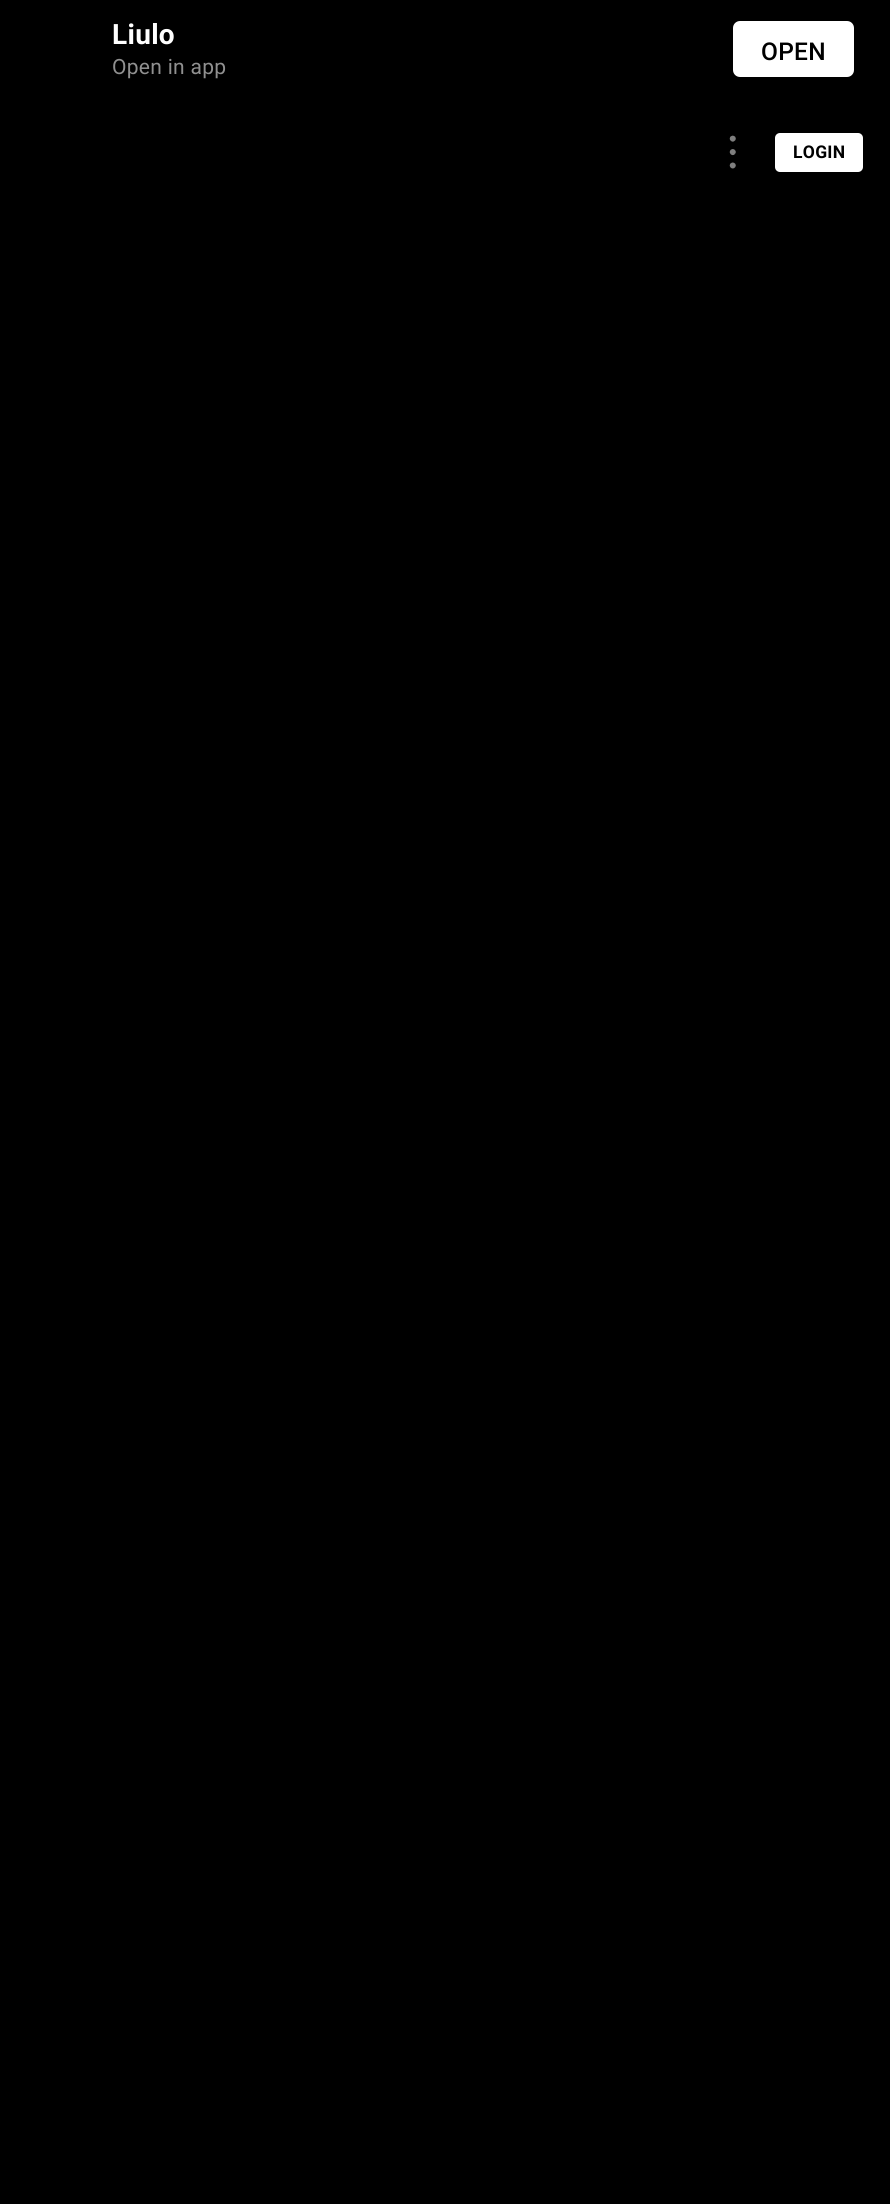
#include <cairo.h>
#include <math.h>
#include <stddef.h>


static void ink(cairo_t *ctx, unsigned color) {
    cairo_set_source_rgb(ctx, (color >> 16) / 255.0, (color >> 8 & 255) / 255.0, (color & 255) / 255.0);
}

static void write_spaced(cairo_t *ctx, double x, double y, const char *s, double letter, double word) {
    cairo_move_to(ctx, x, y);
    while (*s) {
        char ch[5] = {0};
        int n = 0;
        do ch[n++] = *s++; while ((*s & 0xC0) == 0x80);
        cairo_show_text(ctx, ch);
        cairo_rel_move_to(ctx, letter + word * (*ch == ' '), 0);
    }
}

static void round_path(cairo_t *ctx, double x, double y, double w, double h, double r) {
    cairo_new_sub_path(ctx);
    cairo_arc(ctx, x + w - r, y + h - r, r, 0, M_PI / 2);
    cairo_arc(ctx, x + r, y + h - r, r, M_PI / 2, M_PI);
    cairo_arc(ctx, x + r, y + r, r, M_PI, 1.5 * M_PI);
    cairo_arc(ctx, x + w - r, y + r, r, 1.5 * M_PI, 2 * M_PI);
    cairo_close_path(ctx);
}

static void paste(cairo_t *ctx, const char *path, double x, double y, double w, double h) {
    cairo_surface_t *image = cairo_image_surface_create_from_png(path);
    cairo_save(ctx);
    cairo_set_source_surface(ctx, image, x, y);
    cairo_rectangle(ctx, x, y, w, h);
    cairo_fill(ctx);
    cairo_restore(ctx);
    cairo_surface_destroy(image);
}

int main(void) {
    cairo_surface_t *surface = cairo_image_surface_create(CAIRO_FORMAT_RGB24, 890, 2204);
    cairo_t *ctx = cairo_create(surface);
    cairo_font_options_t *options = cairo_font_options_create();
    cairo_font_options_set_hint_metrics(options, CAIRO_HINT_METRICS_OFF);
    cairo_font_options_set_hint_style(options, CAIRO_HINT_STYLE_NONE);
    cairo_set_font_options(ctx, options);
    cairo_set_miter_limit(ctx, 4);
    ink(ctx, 0x000000);
    cairo_paint(ctx);
    cairo_select_font_face(ctx, "Roboto", CAIRO_FONT_SLANT_NORMAL, CAIRO_FONT_WEIGHT_BOLD);
    cairo_set_font_size(ctx, 28);
    ink(ctx, 0xFFFFFF);
    write_spaced(ctx, 112, 44, "Liulo", 0.3, 0);
    cairo_select_font_face(ctx, "Roboto", CAIRO_FONT_SLANT_NORMAL, CAIRO_FONT_WEIGHT_NORMAL);
    cairo_set_font_size(ctx, 21);
    ink(ctx, 0x909090);
    write_spaced(ctx, 112, 74, "Open in app", 0.3, 0);
    ink(ctx, 0xFFFFFF);
    round_path(ctx, 733, 21, 121, 56, 7);
    cairo_fill(ctx);
    cairo_select_font_face(ctx, "Roboto Medium", CAIRO_FONT_SLANT_NORMAL, CAIRO_FONT_WEIGHT_NORMAL);
    cairo_set_font_size(ctx, 24.5);
    ink(ctx, 0x000000);
    write_spaced(ctx, 761, 60, "OPEN", 0.3, 0);
    paste(ctx, "media/1.png", 729, 135, 7, 34);
    ink(ctx, 0xFFFFFF);
    round_path(ctx, 775, 133, 88, 39, 5);
    cairo_fill(ctx);
    cairo_select_font_face(ctx, "Roboto", CAIRO_FONT_SLANT_NORMAL, CAIRO_FONT_WEIGHT_BOLD);
    cairo_set_font_size(ctx, 17.5);
    ink(ctx, 0x000000);
    write_spaced(ctx, 793, 158, "LOGIN", 0.3, 0);
    cairo_surface_write_to_png(surface, "image.png");
    cairo_font_options_destroy(options);
    cairo_destroy(ctx);
    cairo_surface_destroy(surface);
    return 0;
}
